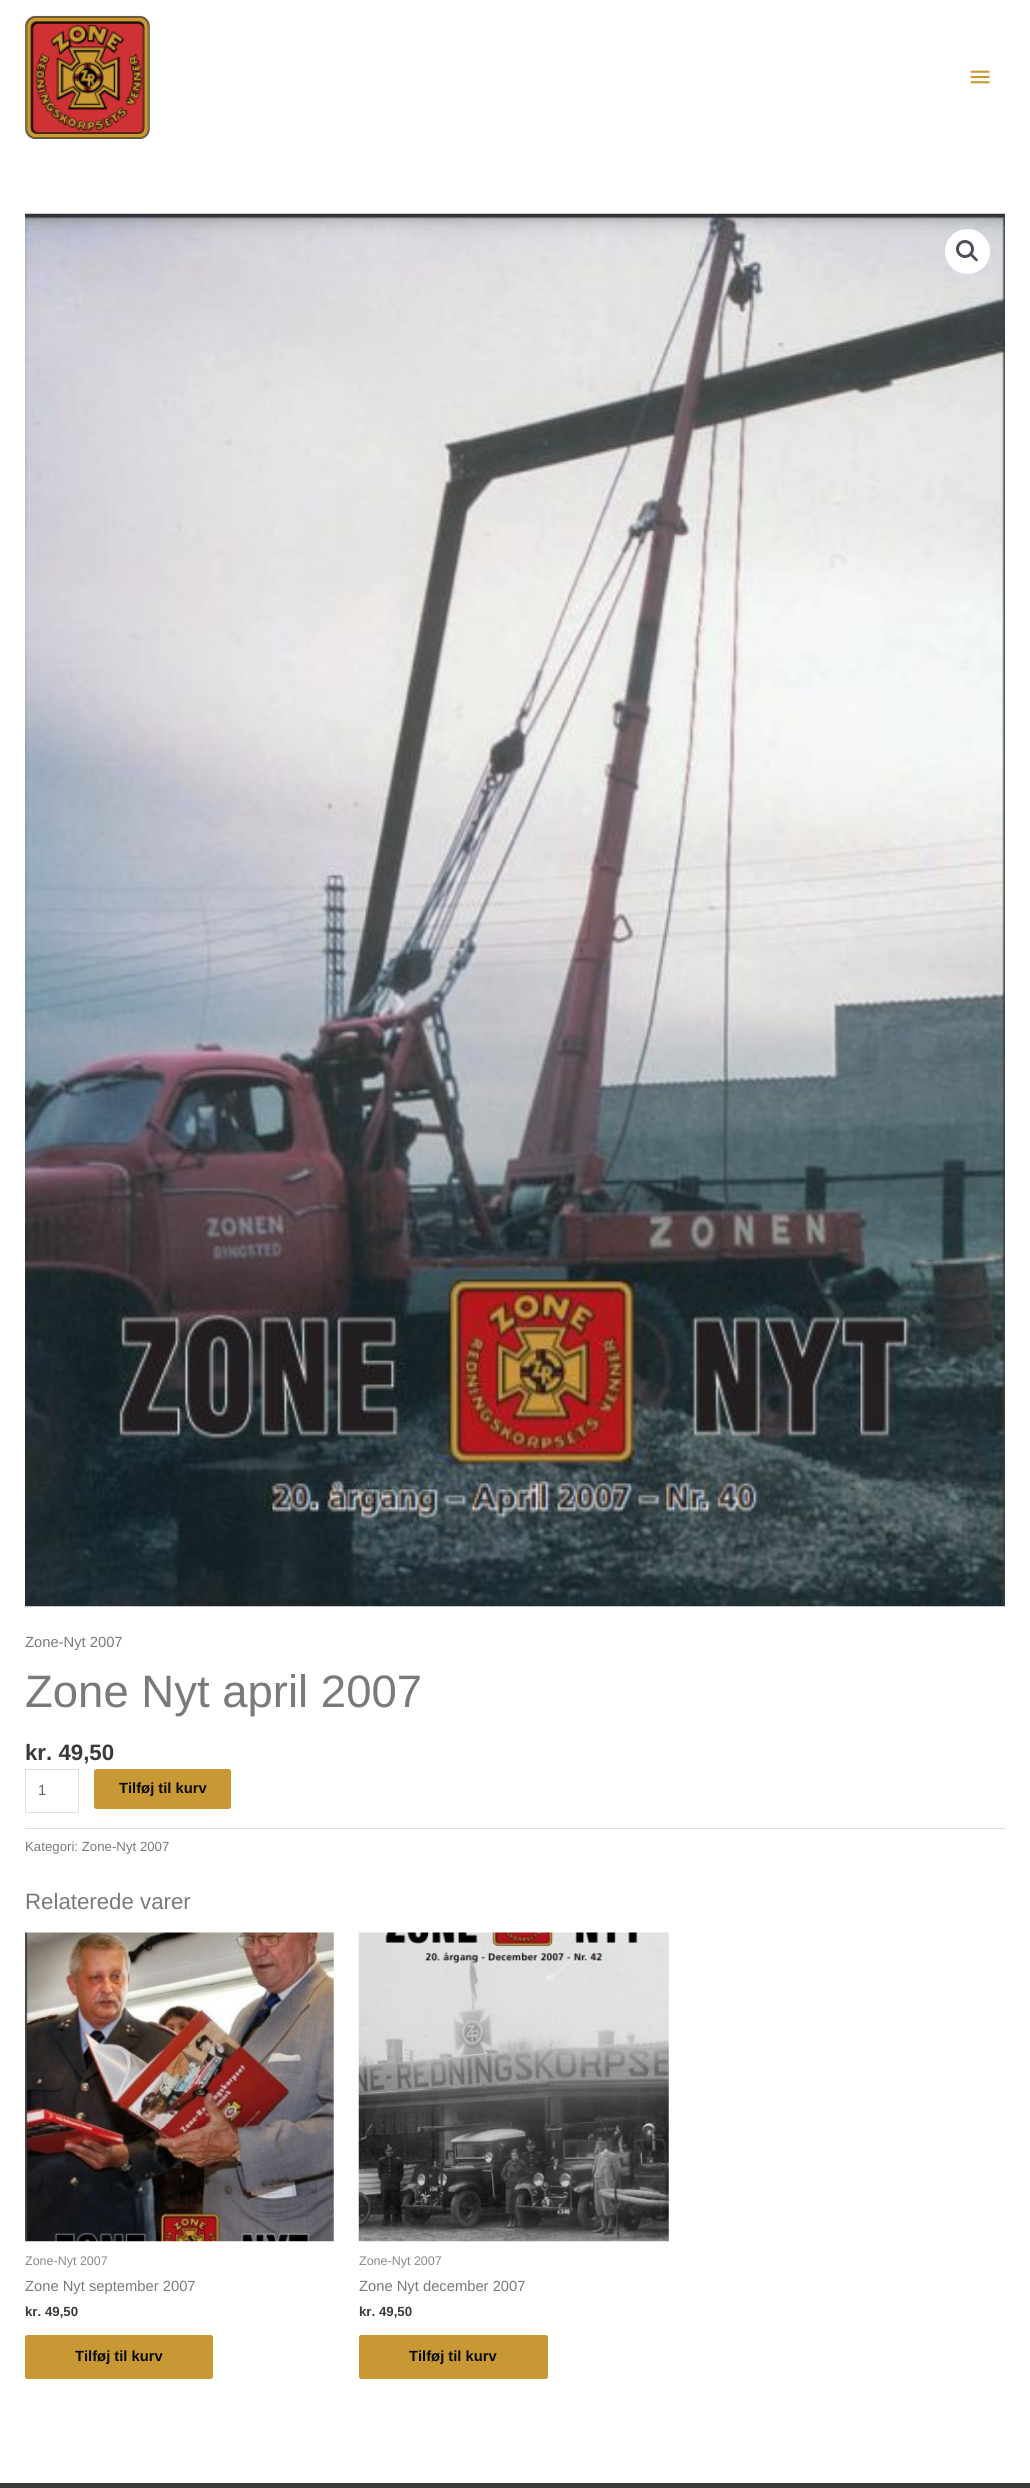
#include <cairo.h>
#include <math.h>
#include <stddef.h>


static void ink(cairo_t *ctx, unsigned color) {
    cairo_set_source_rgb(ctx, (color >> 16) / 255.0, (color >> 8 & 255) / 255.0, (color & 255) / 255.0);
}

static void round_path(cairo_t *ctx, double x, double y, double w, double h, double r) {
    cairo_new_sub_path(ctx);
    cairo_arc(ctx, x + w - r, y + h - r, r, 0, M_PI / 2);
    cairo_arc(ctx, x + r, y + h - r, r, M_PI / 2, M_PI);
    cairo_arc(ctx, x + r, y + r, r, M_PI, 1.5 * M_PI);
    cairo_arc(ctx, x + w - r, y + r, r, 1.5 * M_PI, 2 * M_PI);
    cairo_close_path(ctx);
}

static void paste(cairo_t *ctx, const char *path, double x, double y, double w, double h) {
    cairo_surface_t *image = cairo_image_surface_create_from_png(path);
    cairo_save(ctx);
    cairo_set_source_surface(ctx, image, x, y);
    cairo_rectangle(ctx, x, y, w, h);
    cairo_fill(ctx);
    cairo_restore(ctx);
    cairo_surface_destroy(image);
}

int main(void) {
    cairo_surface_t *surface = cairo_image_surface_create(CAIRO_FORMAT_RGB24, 1030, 2488);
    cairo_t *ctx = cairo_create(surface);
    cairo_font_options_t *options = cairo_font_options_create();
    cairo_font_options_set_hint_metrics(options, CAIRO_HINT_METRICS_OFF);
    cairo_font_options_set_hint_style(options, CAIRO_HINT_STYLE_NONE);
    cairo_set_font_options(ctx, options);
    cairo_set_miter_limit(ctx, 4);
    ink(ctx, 0xFFFFFF);
    cairo_paint(ctx);
    paste(ctx, "media/1.png", 25, 15, 125, 124);
    paste(ctx, "media/2.png", 970, 70, 20, 14);
    paste(ctx, "media/3.png", 25, 213, 980, 1394);
    ink(ctx, 0xFFFFFF);
    cairo_arc(ctx, 967.5, 251.5, 22.5, 0, 2 * M_PI);
    cairo_fill(ctx);
    cairo_arc(ctx, 965, 249, 7.5, 0, 2 * M_PI);
    ink(ctx, 0x4B4F58);
    cairo_set_line_width(ctx, 3);
    cairo_stroke(ctx);
    cairo_new_path(ctx);
    cairo_move_to(ctx, 970.5, 254);
    cairo_curve_to(ctx, 972, 252.5, 974, 256, 975, 256.5);
    cairo_curve_to(ctx, 975.5, 257.5, 979, 259.5, 977.5, 261);
    cairo_curve_to(ctx, 976, 262.5, 974, 259, 973, 258.5);
    cairo_curve_to(ctx, 972.5, 257.5, 969, 255.5, 970.5, 254);
    cairo_close_path(ctx);
    cairo_fill(ctx);
    cairo_select_font_face(ctx, "Liberation Sans", CAIRO_FONT_SLANT_NORMAL, CAIRO_FONT_WEIGHT_NORMAL);
    cairo_set_font_size(ctx, 14.75);
    ink(ctx, 0x7A7A7A);
    cairo_move_to(ctx, 25, 1647);
    cairo_show_text(ctx, "Zone-Nyt 2007");
    cairo_set_font_size(ctx, 45.5);
    cairo_move_to(ctx, 25, 1707);
    cairo_show_text(ctx, "Zone Nyt april 2007");
    cairo_select_font_face(ctx, "Liberation Sans", CAIRO_FONT_SLANT_NORMAL, CAIRO_FONT_WEIGHT_BOLD);
    cairo_set_font_size(ctx, 22.25);
    ink(ctx, 0x3A3A3A);
    cairo_move_to(ctx, 25, 1760);
    cairo_show_text(ctx, "kr. 49,50");
    cairo_rectangle(ctx, 25.5, 1769.5, 53, 43);
    ink(ctx, 0xDDDDDD);
    cairo_set_line_width(ctx, 1);
    cairo_stroke(ctx);
    cairo_select_font_face(ctx, "Liberation Sans", CAIRO_FONT_SLANT_NORMAL, CAIRO_FONT_WEIGHT_NORMAL);
    cairo_set_font_size(ctx, 14.75);
    ink(ctx, 0x666666);
    cairo_move_to(ctx, 38, 1795);
    cairo_show_text(ctx, "1");
    ink(ctx, 0xC89834);
    round_path(ctx, 94, 1769, 137, 40, 2.5);
    cairo_fill(ctx);
    cairo_select_font_face(ctx, "Liberation Sans", CAIRO_FONT_SLANT_NORMAL, CAIRO_FONT_WEIGHT_BOLD);
    ink(ctx, 0x0A0A0A);
    cairo_move_to(ctx, 119, 1793);
    cairo_show_text(ctx, "Tilføj til kurv");
    ink(ctx, 0xDDDDDD);
    cairo_rectangle(ctx, 25, 1828, 980, 1);
    cairo_fill(ctx);
    cairo_select_font_face(ctx, "Liberation Sans", CAIRO_FONT_SLANT_NORMAL, CAIRO_FONT_WEIGHT_NORMAL);
    cairo_set_font_size(ctx, 13.25);
    ink(ctx, 0x7A7A7A);
    cairo_move_to(ctx, 25, 1851);
    cairo_show_text(ctx, "Kategori: Zone-Nyt 2007");
    cairo_set_font_size(ctx, 22.25);
    cairo_move_to(ctx, 25, 1909);
    cairo_show_text(ctx, "Relaterede varer");
    paste(ctx, "media/4.png", 25, 1932, 309, 310);
    cairo_set_font_size(ctx, 12.5);
    ink(ctx, 0x898989);
    cairo_move_to(ctx, 25, 2265);
    cairo_show_text(ctx, "Zone-Nyt 2007");
    cairo_set_font_size(ctx, 14.75);
    ink(ctx, 0x7A7A7A);
    cairo_move_to(ctx, 25, 2291);
    cairo_show_text(ctx, "Zone Nyt september 2007");
    cairo_select_font_face(ctx, "Liberation Sans", CAIRO_FONT_SLANT_NORMAL, CAIRO_FONT_WEIGHT_BOLD);
    cairo_set_font_size(ctx, 13.25);
    ink(ctx, 0x3A3A3A);
    cairo_move_to(ctx, 25, 2316);
    cairo_show_text(ctx, "kr. 49,50");
    ink(ctx, 0xC89834);
    round_path(ctx, 25, 2335, 188, 44, 2.5);
    cairo_fill(ctx);
    cairo_set_font_size(ctx, 14.75);
    ink(ctx, 0x0A0A0A);
    cairo_move_to(ctx, 75, 2361);
    cairo_show_text(ctx, "Tilføj til kurv");
    paste(ctx, "media/5.png", 358, 1932, 311, 310);
    cairo_select_font_face(ctx, "Liberation Sans", CAIRO_FONT_SLANT_NORMAL, CAIRO_FONT_WEIGHT_NORMAL);
    cairo_set_font_size(ctx, 12.5);
    ink(ctx, 0x898989);
    cairo_move_to(ctx, 359, 2265);
    cairo_show_text(ctx, "Zone-Nyt 2007");
    cairo_set_font_size(ctx, 14.75);
    ink(ctx, 0x7A7A7A);
    cairo_move_to(ctx, 359, 2291);
    cairo_show_text(ctx, "Zone Nyt december 2007");
    cairo_select_font_face(ctx, "Liberation Sans", CAIRO_FONT_SLANT_NORMAL, CAIRO_FONT_WEIGHT_BOLD);
    cairo_set_font_size(ctx, 13.25);
    ink(ctx, 0x3A3A3A);
    cairo_move_to(ctx, 359, 2316);
    cairo_show_text(ctx, "kr. 49,50");
    ink(ctx, 0xC89834);
    round_path(ctx, 359, 2335, 189, 44, 2.5);
    cairo_fill(ctx);
    cairo_set_font_size(ctx, 14.75);
    ink(ctx, 0x0A0A0A);
    cairo_move_to(ctx, 409, 2361);
    cairo_show_text(ctx, "Tilføj til kurv");
    ink(ctx, 0x3A3A3A);
    cairo_rectangle(ctx, 0, 2483, 1030, 5);
    cairo_fill(ctx);
    cairo_surface_write_to_png(surface, "image.png");
    cairo_font_options_destroy(options);
    cairo_destroy(ctx);
    cairo_surface_destroy(surface);
    return 0;
}
